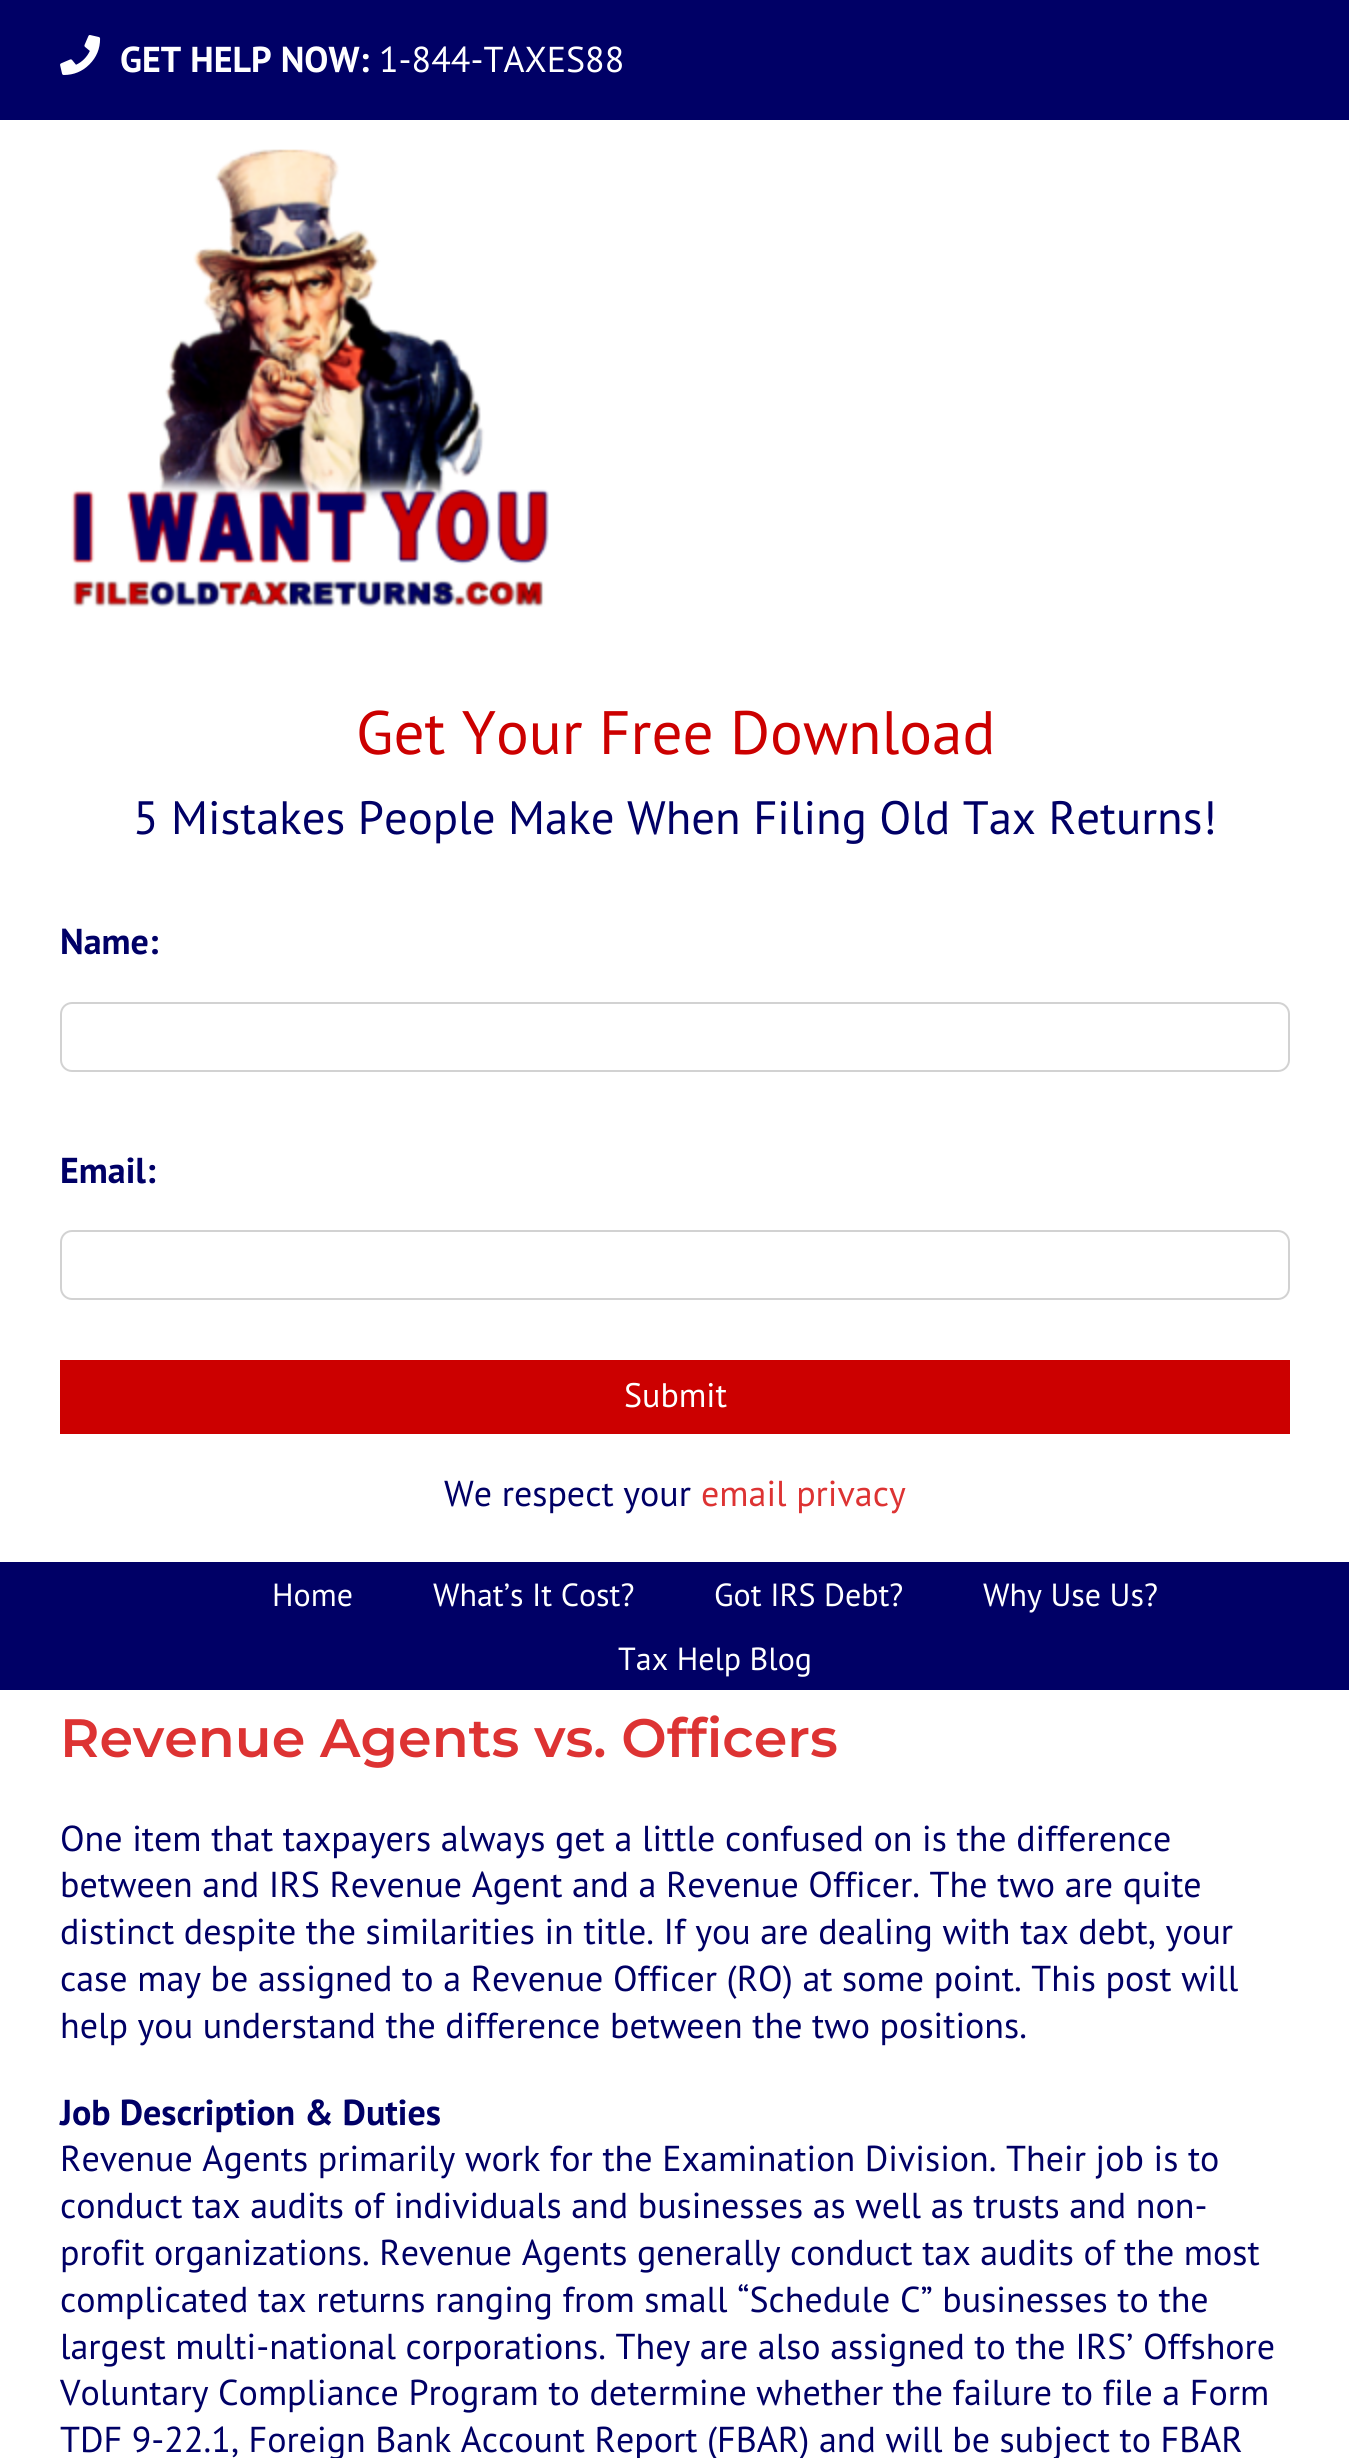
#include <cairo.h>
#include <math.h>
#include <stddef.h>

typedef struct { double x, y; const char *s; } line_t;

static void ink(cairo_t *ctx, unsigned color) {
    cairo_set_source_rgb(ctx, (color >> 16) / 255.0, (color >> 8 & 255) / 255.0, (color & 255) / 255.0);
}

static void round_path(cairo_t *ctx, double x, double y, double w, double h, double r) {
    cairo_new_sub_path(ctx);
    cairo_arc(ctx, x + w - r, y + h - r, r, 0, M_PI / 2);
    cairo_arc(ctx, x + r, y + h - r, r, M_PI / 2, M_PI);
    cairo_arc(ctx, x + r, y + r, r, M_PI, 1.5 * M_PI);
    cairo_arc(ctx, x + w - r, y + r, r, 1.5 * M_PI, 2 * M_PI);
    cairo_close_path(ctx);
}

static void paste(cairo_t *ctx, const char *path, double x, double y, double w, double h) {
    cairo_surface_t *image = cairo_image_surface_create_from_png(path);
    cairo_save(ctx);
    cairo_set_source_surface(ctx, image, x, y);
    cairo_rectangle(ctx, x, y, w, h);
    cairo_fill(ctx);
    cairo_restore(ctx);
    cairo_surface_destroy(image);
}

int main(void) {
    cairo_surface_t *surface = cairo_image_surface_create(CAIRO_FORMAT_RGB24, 1349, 2458);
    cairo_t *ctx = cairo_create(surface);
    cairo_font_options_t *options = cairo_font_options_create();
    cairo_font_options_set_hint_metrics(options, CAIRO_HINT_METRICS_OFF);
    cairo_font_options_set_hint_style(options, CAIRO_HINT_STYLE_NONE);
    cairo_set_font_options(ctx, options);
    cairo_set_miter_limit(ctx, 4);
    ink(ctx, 0xFFFFFF);
    cairo_paint(ctx);
    ink(ctx, 0x000066);
    cairo_rectangle(ctx, 0, 0, 1349, 120);
    cairo_fill(ctx);
    paste(ctx, "media/1.png", 60, 35, 41, 40);
    cairo_select_font_face(ctx, "PT Sans", CAIRO_FONT_SLANT_NORMAL, CAIRO_FONT_WEIGHT_BOLD);
    cairo_set_font_size(ctx, 36);
    ink(ctx, 0xFFFFFF);
    cairo_move_to(ctx, 120, 72);
    cairo_show_text(ctx, "GET HELP NOW:");
    cairo_select_font_face(ctx, "PT Sans", CAIRO_FONT_SLANT_NORMAL, CAIRO_FONT_WEIGHT_NORMAL);
    cairo_move_to(ctx, 379, 72);
    cairo_show_text(ctx, "1-844-TAXES88");
    paste(ctx, "media/2.png", 71, 149, 478, 458);
    cairo_set_font_size(ctx, 61.25);
    ink(ctx, 0xCC0000);
    cairo_move_to(ctx, 356, 754);
    cairo_show_text(ctx, "Get Your Free Download");
    cairo_set_font_size(ctx, 46.8);
    ink(ctx, 0x000066);
    cairo_move_to(ctx, 133, 834);
    cairo_show_text(ctx, "5 Mistakes People Make When Filing Old Tax Returns!");
    cairo_select_font_face(ctx, "PT Sans", CAIRO_FONT_SLANT_NORMAL, CAIRO_FONT_WEIGHT_BOLD);
    cairo_set_font_size(ctx, 36);
    cairo_move_to(ctx, 60, 954);
    cairo_show_text(ctx, "Name:");
    round_path(ctx, 61, 1003, 1228, 68, 11);
    ink(ctx, 0xD2D2D2);
    cairo_stroke(ctx);
    ink(ctx, 0x000066);
    cairo_move_to(ctx, 60, 1183);
    cairo_show_text(ctx, "Email:");
    round_path(ctx, 61, 1231, 1228, 68, 11);
    ink(ctx, 0xD2D2D2);
    cairo_stroke(ctx);
    ink(ctx, 0xCC0000);
    cairo_rectangle(ctx, 60, 1360, 1230, 74);
    cairo_fill(ctx);
    cairo_select_font_face(ctx, "PT Sans", CAIRO_FONT_SLANT_NORMAL, CAIRO_FONT_WEIGHT_NORMAL);
    cairo_set_font_size(ctx, 34);
    ink(ctx, 0xFFFFFF);
    cairo_move_to(ctx, 624, 1407);
    cairo_show_text(ctx, "Submit");
    cairo_set_font_size(ctx, 36);
    ink(ctx, 0x000066);
    cairo_move_to(ctx, 444, 1506);
    cairo_show_text(ctx, "We respect your");
    ink(ctx, 0xDD3333);
    cairo_move_to(ctx, 701, 1506);
    cairo_show_text(ctx, "email privacy");
    ink(ctx, 0x000066);
    cairo_rectangle(ctx, 0, 1562, 1349, 128);
    cairo_fill(ctx);
    cairo_set_font_size(ctx, 32);
    ink(ctx, 0xFFFFFF);
    {
        static const line_t items[] = {
            {272, 1606, "Home"},
            {433, 1606, "What’s It Cost?"},
            {714, 1606, "Got IRS Debt?"},
            {983, 1606, "Why Use Us?"},
            {618, 1670, "Tax Help Blog"},
        };
        for (size_t i = 0; i < sizeof items / sizeof *items; i++) {
            cairo_move_to(ctx, items[i].x, items[i].y);
            cairo_show_text(ctx, items[i].s);
        }
    }
    cairo_select_font_face(ctx, "Montserrat Thin", CAIRO_FONT_SLANT_NORMAL, CAIRO_FONT_WEIGHT_NORMAL);
    cairo_set_font_size(ctx, 54);
    ink(ctx, 0xDD3333);
    cairo_move_to(ctx, 60, 1757);
    cairo_show_text(ctx, "Revenue Agents vs. Officers");
    cairo_select_font_face(ctx, "PT Sans", CAIRO_FONT_SLANT_NORMAL, CAIRO_FONT_WEIGHT_NORMAL);
    cairo_set_font_size(ctx, 36);
    ink(ctx, 0x000066);
    {
        static const line_t items[] = {
            {60, 1851, "One item that taxpayers always get a little confused on is the difference"},
            {60, 1897, "between and IRS Revenue Agent and a Revenue Officer. The two are quite"},
            {60, 1944, "distinct despite the similarities in title. If you are dealing with tax debt, your"},
            {60, 1991, "case may be assigned to a Revenue Officer (RO) at some point. This post will"},
            {60, 2038, "help you understand the difference between the two positions."},
        };
        for (size_t i = 0; i < sizeof items / sizeof *items; i++) {
            cairo_move_to(ctx, items[i].x, items[i].y);
            cairo_show_text(ctx, items[i].s);
        }
    }
    cairo_select_font_face(ctx, "PT Sans", CAIRO_FONT_SLANT_NORMAL, CAIRO_FONT_WEIGHT_BOLD);
    cairo_move_to(ctx, 60, 2125);
    cairo_show_text(ctx, "Job Description & Duties");
    cairo_select_font_face(ctx, "PT Sans", CAIRO_FONT_SLANT_NORMAL, CAIRO_FONT_WEIGHT_NORMAL);
    {
        static const line_t items[] = {
            {60, 2171, "Revenue Agents primarily work for the Examination Division. Their job is to"},
            {60, 2218, "conduct tax audits of individuals and businesses as well as trusts and non-"},
            {60, 2265, "profit organizations. Revenue Agents generally conduct tax audits of the most"},
            {60, 2312, "complicated tax returns ranging from small “Schedule C” businesses to the"},
            {60, 2359, "largest multi-national corporations. They are also assigned to the IRS’ Offshore"},
            {60, 2405, "Voluntary Compliance Program to determine whether the failure to file a Form"},
            {60, 2452, "TDF 9-22.1, Foreign Bank Account Report (FBAR) and will be subject to FBAR"},
        };
        for (size_t i = 0; i < sizeof items / sizeof *items; i++) {
            cairo_move_to(ctx, items[i].x, items[i].y);
            cairo_show_text(ctx, items[i].s);
        }
    }
    cairo_surface_write_to_png(surface, "image.png");
    cairo_font_options_destroy(options);
    cairo_destroy(ctx);
    cairo_surface_destroy(surface);
    return 0;
}
